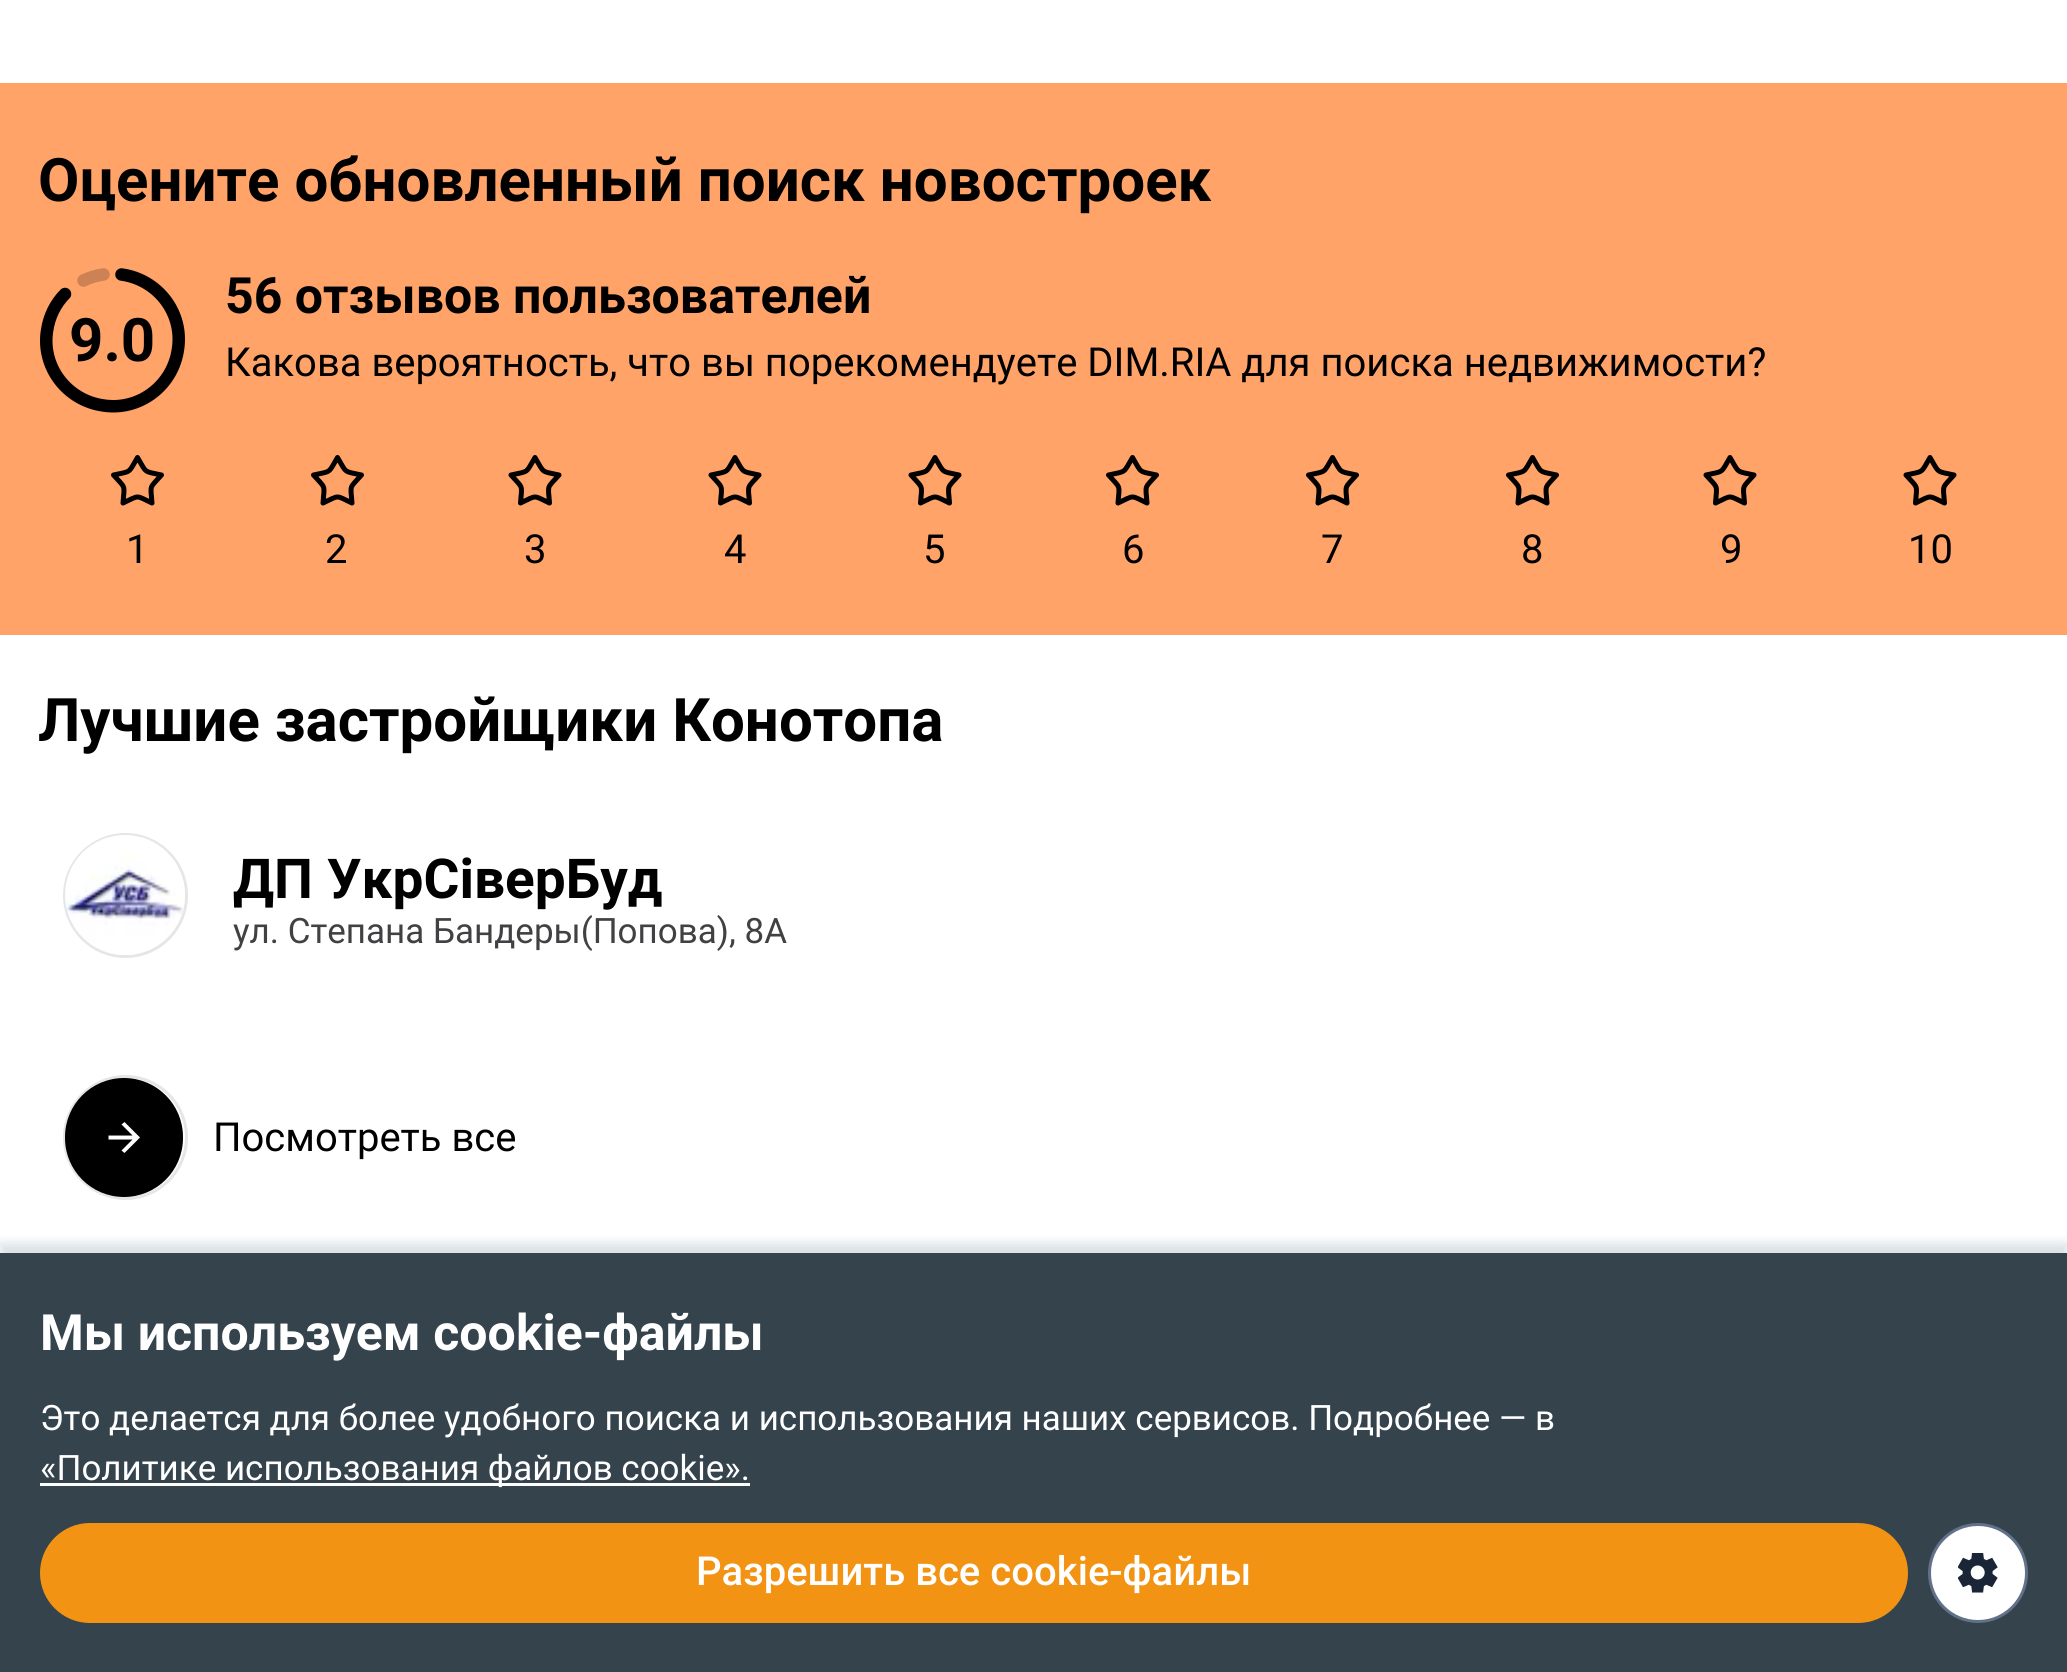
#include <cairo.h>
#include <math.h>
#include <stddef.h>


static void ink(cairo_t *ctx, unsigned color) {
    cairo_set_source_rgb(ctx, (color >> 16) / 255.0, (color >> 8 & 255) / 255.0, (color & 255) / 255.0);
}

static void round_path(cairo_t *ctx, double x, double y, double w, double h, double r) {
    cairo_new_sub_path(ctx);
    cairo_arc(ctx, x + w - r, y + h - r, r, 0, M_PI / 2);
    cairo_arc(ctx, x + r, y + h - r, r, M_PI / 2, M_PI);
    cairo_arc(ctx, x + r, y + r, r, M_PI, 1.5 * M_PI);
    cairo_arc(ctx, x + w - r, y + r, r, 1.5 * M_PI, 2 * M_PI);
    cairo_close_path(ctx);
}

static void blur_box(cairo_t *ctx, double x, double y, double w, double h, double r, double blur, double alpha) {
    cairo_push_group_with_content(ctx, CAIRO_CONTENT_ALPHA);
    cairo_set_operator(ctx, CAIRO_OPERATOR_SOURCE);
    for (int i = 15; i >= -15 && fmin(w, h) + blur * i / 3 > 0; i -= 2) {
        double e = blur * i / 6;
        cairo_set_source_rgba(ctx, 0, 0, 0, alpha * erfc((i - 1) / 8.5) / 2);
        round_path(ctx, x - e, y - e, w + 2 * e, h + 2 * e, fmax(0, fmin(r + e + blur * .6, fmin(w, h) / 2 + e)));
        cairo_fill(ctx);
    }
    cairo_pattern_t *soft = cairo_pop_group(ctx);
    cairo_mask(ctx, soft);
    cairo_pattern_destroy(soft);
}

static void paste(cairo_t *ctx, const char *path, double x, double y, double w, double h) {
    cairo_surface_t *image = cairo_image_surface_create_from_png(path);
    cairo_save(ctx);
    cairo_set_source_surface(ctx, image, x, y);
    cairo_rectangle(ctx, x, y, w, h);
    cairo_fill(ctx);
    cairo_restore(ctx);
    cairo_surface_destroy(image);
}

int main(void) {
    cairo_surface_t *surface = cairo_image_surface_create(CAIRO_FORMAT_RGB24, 2067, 1672);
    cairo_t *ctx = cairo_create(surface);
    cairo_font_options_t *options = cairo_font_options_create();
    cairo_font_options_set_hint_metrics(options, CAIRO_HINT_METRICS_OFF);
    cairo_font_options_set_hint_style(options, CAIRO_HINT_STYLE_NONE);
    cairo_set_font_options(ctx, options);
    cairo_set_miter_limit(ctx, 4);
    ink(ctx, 0xFFFFFF);
    cairo_paint(ctx);
    ink(ctx, 0xFFA369);
    cairo_rectangle(ctx, 0, 83, 2067, 552);
    cairo_fill(ctx);
    cairo_select_font_face(ctx, "Roboto", CAIRO_FONT_SLANT_NORMAL, CAIRO_FONT_WEIGHT_BOLD);
    cairo_set_font_size(ctx, 60);
    ink(ctx, 0x000000);
    cairo_move_to(ctx, 38, 201);
    cairo_show_text(ctx, "Оцените обновленный поиск новостроек");
    cairo_new_path(ctx);
    cairo_move_to(ctx, 103.5, 274.5);
    cairo_curve_to(ctx, 96, 275.5, 89.5, 277.5, 83.5, 280.5);
    ink(ctx, 0xCC8254);
    cairo_set_line_width(ctx, 12.5);
    cairo_set_line_cap(ctx, CAIRO_LINE_CAP_ROUND);
    cairo_stroke(ctx);
    cairo_new_path(ctx);
    cairo_move_to(ctx, 121.5, 274.5);
    cairo_curve_to(ctx, 158, 279.5, 183.5, 313, 178, 349);
    cairo_curve_to(ctx, 173, 385.5, 139.5, 411, 103.5, 405.5);
    cairo_curve_to(ctx, 67, 400.5, 41.5, 367, 47, 331);
    cairo_curve_to(ctx, 49, 316.5, 55.5, 303.5, 65, 294);
    ink(ctx, 0x000000);
    cairo_stroke(ctx);
    cairo_move_to(ctx, 69, 361);
    cairo_show_text(ctx, "9.0");
    cairo_set_font_size(ctx, 50);
    cairo_move_to(ctx, 225, 313);
    cairo_show_text(ctx, "56 отзывов пользователей");
    cairo_select_font_face(ctx, "Roboto", CAIRO_FONT_SLANT_NORMAL, CAIRO_FONT_WEIGHT_NORMAL);
    cairo_set_font_size(ctx, 40);
    cairo_move_to(ctx, 225, 376);
    cairo_show_text(ctx, "Какова вероятность, что вы порекомендуете DIM.RIA для поиска недвижимости?");
    cairo_new_path(ctx);
    cairo_move_to(ctx, 137.5, 457.5);
    cairo_curve_to(ctx, 147, 473.5, 143, 471, 161.5, 475);
    cairo_curve_to(ctx, 149, 489, 150.5, 484, 152, 503);
    cairo_curve_to(ctx, 135, 495, 140, 495, 123, 503);
    cairo_curve_to(ctx, 124.5, 484, 126, 489, 113.5, 475);
    cairo_curve_to(ctx, 132, 471, 128, 473.5, 137.5, 457.5);
    cairo_close_path(ctx);
    cairo_set_line_width(ctx, 5);
    cairo_set_line_cap(ctx, CAIRO_LINE_CAP_BUTT);
    cairo_set_line_join(ctx, CAIRO_LINE_JOIN_ROUND);
    cairo_stroke(ctx);
    cairo_move_to(ctx, 126, 563);
    cairo_show_text(ctx, "1");
    cairo_new_path(ctx);
    cairo_move_to(ctx, 337.5, 457.5);
    cairo_curve_to(ctx, 347, 473.5, 343, 471, 361.5, 475);
    cairo_curve_to(ctx, 349, 489, 350.5, 484, 352, 503);
    cairo_curve_to(ctx, 335, 495, 340, 495, 323, 503);
    cairo_curve_to(ctx, 324.5, 484, 326, 489, 313.5, 475);
    cairo_curve_to(ctx, 332, 471, 328, 473.5, 337.5, 457.5);
    cairo_close_path(ctx);
    cairo_stroke(ctx);
    cairo_move_to(ctx, 325, 563);
    cairo_show_text(ctx, "2");
    cairo_new_path(ctx);
    cairo_move_to(ctx, 535, 457.5);
    cairo_curve_to(ctx, 544.5, 473.5, 540.5, 471, 559, 475);
    cairo_curve_to(ctx, 546.5, 489, 548, 484, 549.5, 503);
    cairo_curve_to(ctx, 532.5, 495, 537.5, 495, 520.5, 503);
    cairo_curve_to(ctx, 522, 484, 523.5, 489, 511, 475);
    cairo_curve_to(ctx, 529.5, 471, 525.5, 473.5, 535, 457.5);
    cairo_close_path(ctx);
    cairo_stroke(ctx);
    cairo_move_to(ctx, 524, 563);
    cairo_show_text(ctx, "3");
    cairo_new_path(ctx);
    cairo_move_to(ctx, 735, 457.5);
    cairo_curve_to(ctx, 744.5, 473.5, 740.5, 471, 759, 475);
    cairo_curve_to(ctx, 746.5, 489, 748, 484, 749.5, 503);
    cairo_curve_to(ctx, 732.5, 495, 737.5, 495, 720.5, 503);
    cairo_curve_to(ctx, 722, 484, 723.5, 489, 711, 475);
    cairo_curve_to(ctx, 729.5, 471, 725.5, 473.5, 735, 457.5);
    cairo_close_path(ctx);
    cairo_stroke(ctx);
    cairo_move_to(ctx, 724, 563);
    cairo_show_text(ctx, "4");
    cairo_new_path(ctx);
    cairo_move_to(ctx, 935, 457.5);
    cairo_curve_to(ctx, 944.5, 473.5, 940.5, 471, 959, 475);
    cairo_curve_to(ctx, 946.5, 489, 948, 484, 949.5, 503);
    cairo_curve_to(ctx, 932.5, 495, 937.5, 495, 920.5, 503);
    cairo_curve_to(ctx, 922, 484, 923.5, 489, 911, 475);
    cairo_curve_to(ctx, 929.5, 471, 925.5, 473.5, 935, 457.5);
    cairo_close_path(ctx);
    cairo_stroke(ctx);
    cairo_move_to(ctx, 923, 563);
    cairo_show_text(ctx, "5");
    cairo_new_path(ctx);
    cairo_move_to(ctx, 1132.5, 457.5);
    cairo_curve_to(ctx, 1142, 473.5, 1138, 471, 1156.5, 475);
    cairo_curve_to(ctx, 1144, 489, 1145.5, 484, 1147, 503);
    cairo_curve_to(ctx, 1130, 495, 1135, 495, 1118, 503);
    cairo_curve_to(ctx, 1119.5, 484, 1121, 489, 1108.5, 475);
    cairo_curve_to(ctx, 1127, 471, 1123, 473.5, 1132.5, 457.5);
    cairo_close_path(ctx);
    cairo_stroke(ctx);
    cairo_move_to(ctx, 1122, 563);
    cairo_show_text(ctx, "6");
    cairo_new_path(ctx);
    cairo_move_to(ctx, 1332.5, 457.5);
    cairo_curve_to(ctx, 1342, 473.5, 1338, 471, 1356.5, 475);
    cairo_curve_to(ctx, 1344, 489, 1345.5, 484, 1347, 503);
    cairo_curve_to(ctx, 1330, 495, 1335, 495, 1318, 503);
    cairo_curve_to(ctx, 1319.5, 484, 1321, 489, 1308.5, 475);
    cairo_curve_to(ctx, 1327, 471, 1323, 473.5, 1332.5, 457.5);
    cairo_close_path(ctx);
    cairo_stroke(ctx);
    cairo_move_to(ctx, 1321, 563);
    cairo_show_text(ctx, "7");
    cairo_new_path(ctx);
    cairo_move_to(ctx, 1532.5, 457.5);
    cairo_curve_to(ctx, 1542, 473.5, 1538, 471, 1556.5, 475);
    cairo_curve_to(ctx, 1544, 489, 1545.5, 484, 1547, 503);
    cairo_curve_to(ctx, 1530, 495, 1535, 495, 1518, 503);
    cairo_curve_to(ctx, 1519.5, 484, 1521, 489, 1508.5, 475);
    cairo_curve_to(ctx, 1527, 471, 1523, 473.5, 1532.5, 457.5);
    cairo_close_path(ctx);
    cairo_stroke(ctx);
    cairo_move_to(ctx, 1521, 563);
    cairo_show_text(ctx, "8");
    cairo_new_path(ctx);
    cairo_move_to(ctx, 1730, 457.5);
    cairo_curve_to(ctx, 1739.5, 473.5, 1735.5, 471, 1754, 475);
    cairo_curve_to(ctx, 1741.5, 489, 1743, 484, 1744.5, 503);
    cairo_curve_to(ctx, 1727.5, 495, 1732.5, 495, 1715.5, 503);
    cairo_curve_to(ctx, 1717, 484, 1718.5, 489, 1706, 475);
    cairo_curve_to(ctx, 1724.5, 471, 1720.5, 473.5, 1730, 457.5);
    cairo_close_path(ctx);
    cairo_stroke(ctx);
    cairo_move_to(ctx, 1720, 563);
    cairo_show_text(ctx, "9");
    cairo_new_path(ctx);
    cairo_move_to(ctx, 1930, 457.5);
    cairo_curve_to(ctx, 1939.5, 473.5, 1935.5, 471, 1954, 475);
    cairo_curve_to(ctx, 1941.5, 489, 1943, 484, 1944.5, 503);
    cairo_curve_to(ctx, 1927.5, 495, 1932.5, 495, 1915.5, 503);
    cairo_curve_to(ctx, 1917, 484, 1918.5, 489, 1906, 475);
    cairo_curve_to(ctx, 1924.5, 471, 1920.5, 473.5, 1930, 457.5);
    cairo_close_path(ctx);
    cairo_stroke(ctx);
    cairo_move_to(ctx, 1908, 563);
    cairo_show_text(ctx, "10");
    cairo_select_font_face(ctx, "Roboto", CAIRO_FONT_SLANT_NORMAL, CAIRO_FONT_WEIGHT_BOLD);
    cairo_set_font_size(ctx, 60);
    cairo_move_to(ctx, 38, 741);
    cairo_show_text(ctx, "Лучшие застройщики Конотопа");
    cairo_new_path(ctx);
    cairo_arc(ctx, 125.5, 895.5, 61, 0, 2 * M_PI);
    ink(ctx, 0xE6E6E6);
    cairo_set_line_width(ctx, 3);
    cairo_set_line_join(ctx, CAIRO_LINE_JOIN_MITER);
    cairo_stroke(ctx);
    paste(ctx, "media/1.png", 65, 835, 120, 120);
    cairo_set_font_size(ctx, 55);
    ink(ctx, 0x000000);
    cairo_move_to(ctx, 233, 898);
    cairo_show_text(ctx, "ДП УкрСіверБуд");
    cairo_select_font_face(ctx, "Roboto", CAIRO_FONT_SLANT_NORMAL, CAIRO_FONT_WEIGHT_NORMAL);
    cairo_set_font_size(ctx, 35);
    ink(ctx, 0x414042);
    cairo_move_to(ctx, 233, 943);
    cairo_show_text(ctx, "ул. Степана Бандеры(Попова), 8А");
    cairo_new_path(ctx);
    cairo_arc(ctx, 125.5, 1137.5, 61, 0, 2 * M_PI);
    ink(ctx, 0xE6E6E6);
    cairo_stroke(ctx);
    ink(ctx, 0x000000);
    round_path(ctx, 65, 1078, 118, 119, 59);
    cairo_fill(ctx);
    ink(ctx, 0xFFFFFF);
    cairo_new_path(ctx);
    cairo_move_to(ctx, 108.5, 1139.5);
    cairo_line_to(ctx, 132.5, 1139.5);
    cairo_line_to(ctx, 121.5, 1150.5);
    cairo_line_to(ctx, 124.5, 1153);
    cairo_line_to(ctx, 140, 1137.5);
    cairo_line_to(ctx, 124.5, 1122);
    cairo_line_to(ctx, 121.5, 1124.5);
    cairo_line_to(ctx, 132.5, 1135.5);
    cairo_line_to(ctx, 108.5, 1135.5);
    cairo_close_path(ctx);
    cairo_fill(ctx);
    cairo_set_font_size(ctx, 40);
    ink(ctx, 0x000000);
    cairo_move_to(ctx, 213, 1151);
    cairo_show_text(ctx, "Посмотреть все");
    ink(ctx, 0x003B56);
    blur_box(ctx, 0, 1243, 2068, 420, 0, 5, 0.15);
    ink(ctx, 0x35434D);
    cairo_rectangle(ctx, 0, 1253, 2067, 419);
    cairo_fill(ctx);
    cairo_select_font_face(ctx, "Roboto", CAIRO_FONT_SLANT_NORMAL, CAIRO_FONT_WEIGHT_BOLD);
    cairo_set_font_size(ctx, 50);
    ink(ctx, 0xFFFFFF);
    cairo_move_to(ctx, 40, 1350);
    cairo_show_text(ctx, "Мы используем cookie-файлы");
    cairo_select_font_face(ctx, "Roboto", CAIRO_FONT_SLANT_NORMAL, CAIRO_FONT_WEIGHT_NORMAL);
    cairo_set_font_size(ctx, 35);
    cairo_move_to(ctx, 40, 1430);
    cairo_show_text(ctx, "Это делается для более удобного поиска и использования наших сервисов. Подробнее — в");
    cairo_rectangle(ctx, 40, 1483, 710, 3);
    cairo_fill(ctx);
    cairo_move_to(ctx, 40, 1480);
    cairo_show_text(ctx, "«Политике использования файлов cookie».");
    ink(ctx, 0xF39313);
    round_path(ctx, 40, 1523, 1868, 100, 50);
    cairo_fill(ctx);
    cairo_select_font_face(ctx, "Roboto Medium", CAIRO_FONT_SLANT_NORMAL, CAIRO_FONT_WEIGHT_NORMAL);
    cairo_set_font_size(ctx, 40);
    ink(ctx, 0xFFFFFF);
    cairo_move_to(ctx, 696, 1585);
    cairo_show_text(ctx, "Разрешить все cookie-файлы");
    cairo_new_path(ctx);
    cairo_arc(ctx, 1978, 1573, 48.5, 0, 2 * M_PI);
    cairo_fill_preserve(ctx);
    ink(ctx, 0x62718A);
    cairo_stroke(ctx);
    paste(ctx, "media/2.png", 1958, 1553, 40, 40);
    cairo_surface_write_to_png(surface, "image.png");
    cairo_font_options_destroy(options);
    cairo_destroy(ctx);
    cairo_surface_destroy(surface);
    return 0;
}
